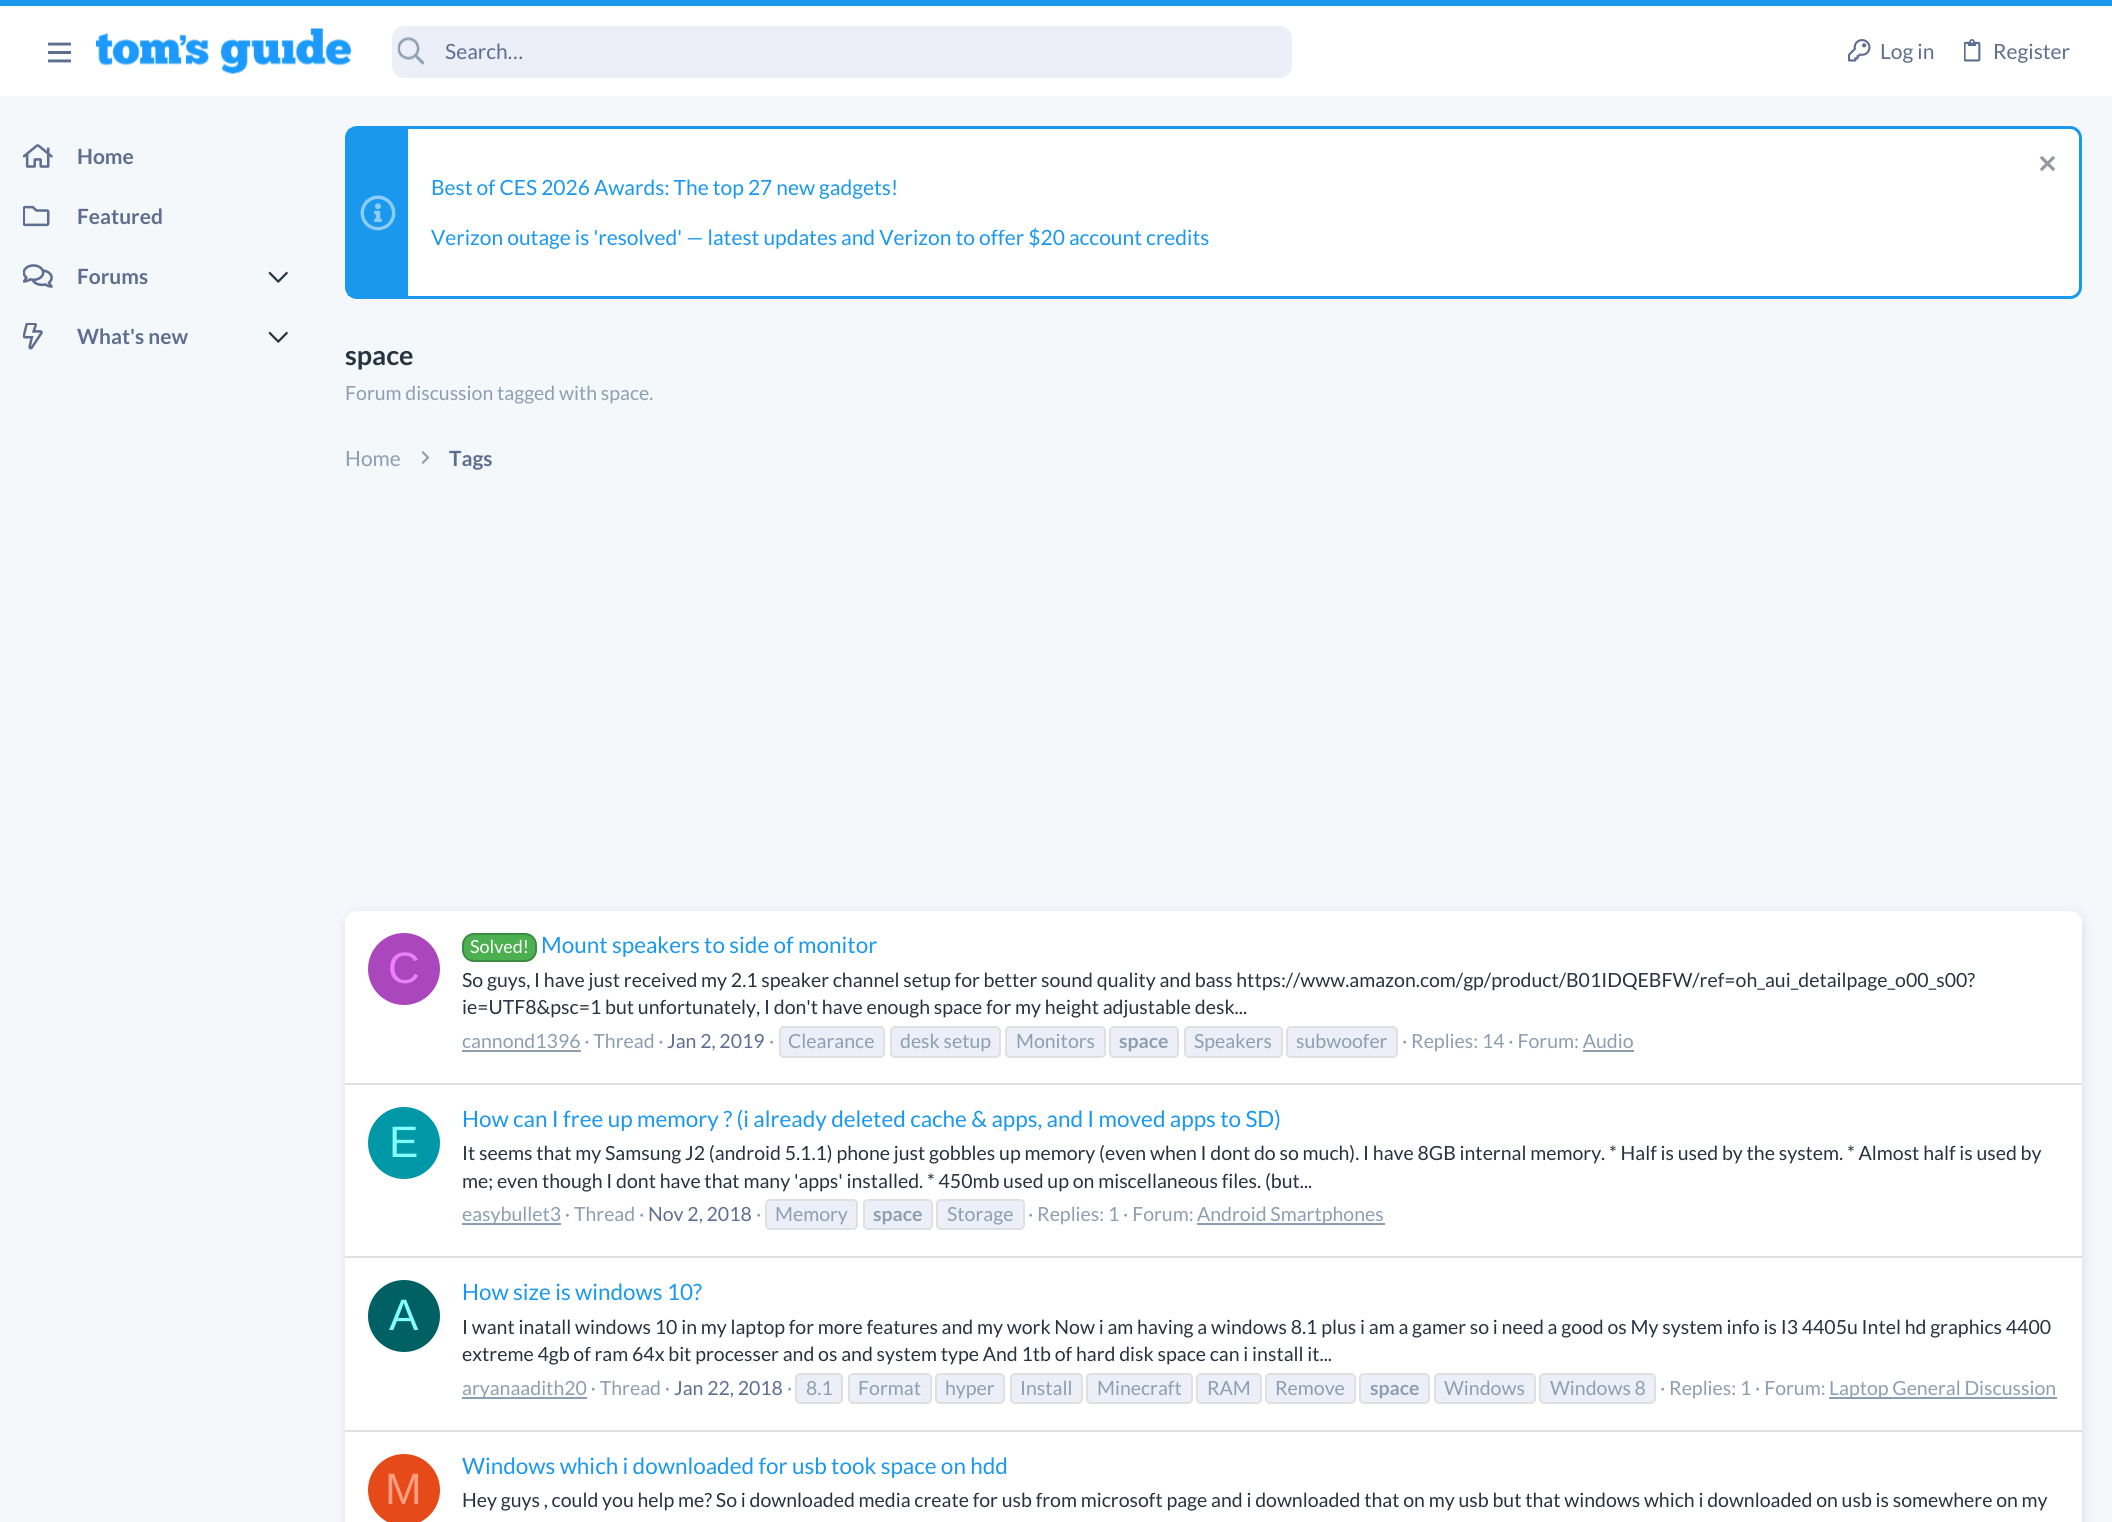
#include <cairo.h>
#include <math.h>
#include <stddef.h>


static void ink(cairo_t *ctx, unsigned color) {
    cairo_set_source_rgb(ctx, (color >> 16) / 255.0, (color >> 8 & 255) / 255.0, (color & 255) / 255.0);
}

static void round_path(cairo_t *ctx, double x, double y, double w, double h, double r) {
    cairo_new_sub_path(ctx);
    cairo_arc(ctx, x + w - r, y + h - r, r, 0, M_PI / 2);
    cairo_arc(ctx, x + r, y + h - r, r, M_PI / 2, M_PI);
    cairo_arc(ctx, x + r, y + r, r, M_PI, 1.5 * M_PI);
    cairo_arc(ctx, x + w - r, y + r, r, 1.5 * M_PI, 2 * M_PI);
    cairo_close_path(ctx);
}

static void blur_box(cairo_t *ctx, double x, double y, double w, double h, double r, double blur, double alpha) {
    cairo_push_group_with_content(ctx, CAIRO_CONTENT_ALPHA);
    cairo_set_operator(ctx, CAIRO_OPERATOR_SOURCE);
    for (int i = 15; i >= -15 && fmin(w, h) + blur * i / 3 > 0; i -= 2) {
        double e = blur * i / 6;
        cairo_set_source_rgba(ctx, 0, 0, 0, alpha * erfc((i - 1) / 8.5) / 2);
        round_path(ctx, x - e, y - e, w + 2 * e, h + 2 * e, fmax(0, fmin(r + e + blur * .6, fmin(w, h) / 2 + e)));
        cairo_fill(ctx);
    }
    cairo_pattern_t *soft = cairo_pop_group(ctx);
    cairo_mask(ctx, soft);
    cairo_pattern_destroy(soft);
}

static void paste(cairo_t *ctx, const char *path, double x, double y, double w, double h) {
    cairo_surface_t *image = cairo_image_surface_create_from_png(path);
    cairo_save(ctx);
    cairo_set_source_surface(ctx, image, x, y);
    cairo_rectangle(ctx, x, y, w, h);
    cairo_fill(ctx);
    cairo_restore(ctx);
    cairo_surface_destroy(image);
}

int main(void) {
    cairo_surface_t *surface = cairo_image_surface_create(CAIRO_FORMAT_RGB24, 2112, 1522);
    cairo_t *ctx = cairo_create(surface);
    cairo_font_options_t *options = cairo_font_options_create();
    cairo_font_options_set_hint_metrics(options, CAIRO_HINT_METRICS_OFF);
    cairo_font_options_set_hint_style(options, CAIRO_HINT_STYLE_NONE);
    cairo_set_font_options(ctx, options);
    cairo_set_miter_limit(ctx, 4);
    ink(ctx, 0xF5F8FB);
    cairo_paint(ctx);
    ink(ctx, 0xFFFFFF);
    cairo_rectangle(ctx, 0, 6, 2112, 90);
    cairo_fill(ctx);
    ink(ctx, 0x1A98EE);
    cairo_rectangle(ctx, 0, 0, 2112, 6);
    cairo_fill(ctx);
    paste(ctx, "media/1.png", 48, 42, 23, 21);
    paste(ctx, "media/2.png", 96, 28, 255, 46);
    ink(ctx, 0xECEFF7);
    round_path(ctx, 392, 26, 900, 52, 12);
    cairo_fill(ctx);
    paste(ctx, "media/3.png", 397, 37, 28, 28);
    cairo_select_font_face(ctx, "Lato", CAIRO_FONT_SLANT_NORMAL, CAIRO_FONT_WEIGHT_NORMAL);
    cairo_set_font_size(ctx, 21);
    ink(ctx, 0x5D6E90);
    cairo_move_to(ctx, 445, 59);
    cairo_show_text(ctx, "Search…");
    paste(ctx, "media/4.png", 1848, 39, 23, 23);
    cairo_move_to(ctx, 1880, 59);
    cairo_show_text(ctx, "Log in");
    paste(ctx, "media/5.png", 1964, 39, 17, 23);
    cairo_move_to(ctx, 1993, 59);
    cairo_show_text(ctx, "Register");
    paste(ctx, "media/6.png", 23, 144, 30, 24);
    cairo_select_font_face(ctx, "Lato", CAIRO_FONT_SLANT_NORMAL, CAIRO_FONT_WEIGHT_BOLD);
    cairo_move_to(ctx, 77, 164);
    cairo_show_text(ctx, "Home");
    paste(ctx, "media/7.png", 23, 205, 27, 22);
    cairo_move_to(ctx, 77, 224);
    cairo_show_text(ctx, "Featured");
    paste(ctx, "media/8.png", 23, 264, 30, 24);
    cairo_move_to(ctx, 77, 284);
    cairo_show_text(ctx, "Forums");
    paste(ctx, "media/9.png", 268, 271, 20, 12);
    paste(ctx, "media/10.png", 23, 323, 20, 27);
    cairo_move_to(ctx, 77, 344);
    cairo_show_text(ctx, "What's new");
    paste(ctx, "media/9.png", 268, 331, 20, 12);
    ink(ctx, 0xFFFFFF);
    round_path(ctx, 346.5, 127.5, 1734, 170, 10.5);
    cairo_fill_preserve(ctx);
    ink(ctx, 0x1A98EE);
    cairo_set_line_width(ctx, 3);
    cairo_stroke(ctx);
    cairo_rectangle(ctx, 348, 129, 60, 167);
    cairo_fill(ctx);
    paste(ctx, "media/11.png", 360, 195, 36, 36);
    paste(ctx, "media/12.png", 2040, 156, 15, 15);
    cairo_select_font_face(ctx, "Lato", CAIRO_FONT_SLANT_NORMAL, CAIRO_FONT_WEIGHT_NORMAL);
    cairo_move_to(ctx, 431, 195);
    cairo_show_text(ctx, "Best of CES 2026 Awards: The top 27 new gadgets!");
    cairo_move_to(ctx, 431, 245);
    cairo_show_text(ctx, "Verizon outage is 'resolved' — latest updates and Verizon to offer $20 account credits");
    cairo_select_font_face(ctx, "Lato", CAIRO_FONT_SLANT_NORMAL, CAIRO_FONT_WEIGHT_BOLD);
    cairo_set_font_size(ctx, 27);
    ink(ctx, 0x263341);
    cairo_move_to(ctx, 345, 365);
    cairo_show_text(ctx, "space");
    cairo_select_font_face(ctx, "Lato", CAIRO_FONT_SLANT_NORMAL, CAIRO_FONT_WEIGHT_NORMAL);
    cairo_set_font_size(ctx, 19.5);
    ink(ctx, 0x8C9EB1);
    cairo_move_to(ctx, 345, 400);
    cairo_show_text(ctx, "Forum discussion tagged with space.");
    cairo_set_font_size(ctx, 21);
    cairo_move_to(ctx, 345, 466);
    cairo_show_text(ctx, "Home");
    paste(ctx, "media/13.png", 422, 451, 7, 13);
    cairo_select_font_face(ctx, "Lato", CAIRO_FONT_SLANT_NORMAL, CAIRO_FONT_WEIGHT_BOLD);
    ink(ctx, 0x5D6E90);
    cairo_move_to(ctx, 449, 466);
    cairo_show_text(ctx, "Tags");
    ink(ctx, 0x677685);
    blur_box(ctx, 348, 911, 1737, 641, 12, 6, 0.08);
    blur_box(ctx, 345, 917, 1737, 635, 12, 6, 0.12);
    ink(ctx, 0xFFFFFF);
    round_path(ctx, 345, 911, 1737, 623, 12);
    cairo_fill(ctx);
    ink(ctx, 0xAB47BC);
    cairo_arc(ctx, 404, 969, 36, 0, 2 * M_PI);
    cairo_fill(ctx);
    cairo_select_font_face(ctx, "Liberation Sans", CAIRO_FONT_SLANT_NORMAL, CAIRO_FONT_WEIGHT_NORMAL);
    cairo_set_font_size(ctx, 44);
    ink(ctx, 0xEA80FC);
    cairo_move_to(ctx, 388, 983);
    cairo_show_text(ctx, "C");
    ink(ctx, 0x4CAF50);
    round_path(ctx, 463, 934, 73, 27, 11);
    cairo_fill_preserve(ctx);
    ink(ctx, 0x3D8B40);
    cairo_set_line_width(ctx, 2);
    cairo_stroke(ctx);
    cairo_select_font_face(ctx, "Lato", CAIRO_FONT_SLANT_NORMAL, CAIRO_FONT_WEIGHT_NORMAL);
    cairo_set_font_size(ctx, 18);
    ink(ctx, 0xFFFFFF);
    cairo_move_to(ctx, 470, 953);
    cairo_show_text(ctx, "Solved!");
    cairo_set_font_size(ctx, 22.5);
    ink(ctx, 0x1A98EE);
    cairo_move_to(ctx, 541, 953);
    cairo_show_text(ctx, "Mount speakers to side of monitor");
    cairo_set_font_size(ctx, 19.5);
    ink(ctx, 0x263341);
    cairo_move_to(ctx, 462, 987);
    cairo_show_text(ctx, "So guys, I have just received my 2.1 speaker channel setup for better sound quality and bass https://www.amazon.com/gp/product/B01IDQEBFW/ref=oh_aui_detailpage_o00_s00?");
    cairo_move_to(ctx, 462, 1014);
    cairo_show_text(ctx, "ie=UTF8&psc=1 but unfortunately, I don't have enough space for my height adjustable desk...");
    ink(ctx, 0x8C9EB1);
    cairo_move_to(ctx, 462, 1048);
    cairo_show_text(ctx, "cannond1396 · Thread ·");
    cairo_rectangle(ctx, 462, 1050, 119, 2);
    cairo_fill(ctx);
    ink(ctx, 0x5D6E90);
    cairo_move_to(ctx, 667, 1048);
    cairo_show_text(ctx, "Jan 2, 2019");
    ink(ctx, 0x8C9EB1);
    cairo_move_to(ctx, 769, 1048);
    cairo_show_text(ctx, "·");
    ink(ctx, 0xECEFF7);
    round_path(ctx, 780, 1027, 104, 30, 4);
    cairo_fill_preserve(ctx);
    ink(ctx, 0xE0E0E0);
    cairo_stroke(ctx);
    ink(ctx, 0x8C9EB1);
    cairo_move_to(ctx, 788, 1048);
    cairo_show_text(ctx, "Clearance");
    ink(ctx, 0xECEFF7);
    round_path(ctx, 891, 1027, 109, 30, 4);
    cairo_fill_preserve(ctx);
    ink(ctx, 0xE0E0E0);
    cairo_stroke(ctx);
    ink(ctx, 0x8C9EB1);
    cairo_move_to(ctx, 900, 1048);
    cairo_show_text(ctx, "desk setup");
    ink(ctx, 0xECEFF7);
    round_path(ctx, 1006, 1027, 99, 30, 4);
    cairo_fill_preserve(ctx);
    ink(ctx, 0xE0E0E0);
    cairo_stroke(ctx);
    ink(ctx, 0x8C9EB1);
    cairo_move_to(ctx, 1016, 1048);
    cairo_show_text(ctx, "Monitors");
    ink(ctx, 0xECEFF7);
    round_path(ctx, 1110, 1027, 68, 30, 4);
    cairo_fill_preserve(ctx);
    ink(ctx, 0xE0E0E0);
    cairo_stroke(ctx);
    cairo_select_font_face(ctx, "Lato", CAIRO_FONT_SLANT_NORMAL, CAIRO_FONT_WEIGHT_BOLD);
    ink(ctx, 0x8C9EB1);
    cairo_move_to(ctx, 1119, 1048);
    cairo_show_text(ctx, "space");
    ink(ctx, 0xECEFF7);
    round_path(ctx, 1185, 1027, 97, 30, 4);
    cairo_fill_preserve(ctx);
    ink(ctx, 0xE0E0E0);
    cairo_stroke(ctx);
    cairo_select_font_face(ctx, "Lato", CAIRO_FONT_SLANT_NORMAL, CAIRO_FONT_WEIGHT_NORMAL);
    ink(ctx, 0x8C9EB1);
    cairo_move_to(ctx, 1194, 1048);
    cairo_show_text(ctx, "Speakers");
    ink(ctx, 0xECEFF7);
    round_path(ctx, 1287, 1027, 110, 30, 4);
    cairo_fill_preserve(ctx);
    ink(ctx, 0xE0E0E0);
    cairo_stroke(ctx);
    ink(ctx, 0x8C9EB1);
    cairo_move_to(ctx, 1296, 1048);
    cairo_show_text(ctx, "subwoofer");
    cairo_move_to(ctx, 1402, 1048);
    cairo_show_text(ctx, "· Replies: 14 · Forum: Audio");
    cairo_rectangle(ctx, 1583, 1050, 51, 2);
    cairo_fill(ctx);
    ink(ctx, 0xE0E0E0);
    cairo_rectangle(ctx, 345, 1083, 1737, 2);
    cairo_fill(ctx);
    ink(ctx, 0x0097A7);
    cairo_arc(ctx, 404, 1143, 36, 0, 2 * M_PI);
    cairo_fill(ctx);
    cairo_select_font_face(ctx, "Liberation Sans", CAIRO_FONT_SLANT_NORMAL, CAIRO_FONT_WEIGHT_NORMAL);
    cairo_set_font_size(ctx, 44);
    ink(ctx, 0x84FFFF);
    cairo_move_to(ctx, 389, 1157);
    cairo_show_text(ctx, "E");
    cairo_select_font_face(ctx, "Lato", CAIRO_FONT_SLANT_NORMAL, CAIRO_FONT_WEIGHT_NORMAL);
    cairo_set_font_size(ctx, 22.5);
    ink(ctx, 0x1A98EE);
    cairo_move_to(ctx, 462, 1127);
    cairo_show_text(ctx, "How can I free up memory ? (i already deleted cache & apps, and I moved apps to SD)");
    cairo_set_font_size(ctx, 19.5);
    ink(ctx, 0x263341);
    cairo_move_to(ctx, 462, 1160);
    cairo_show_text(ctx, "It seems that my Samsung J2 (android 5.1.1) phone just gobbles up memory (even when I dont do so much). I have 8GB internal memory. * Half is used by the system. * Almost half is used by");
    cairo_move_to(ctx, 462, 1188);
    cairo_show_text(ctx, "me; even though I dont have that many 'apps' installed. * 450mb used up on miscellaneous files. (but...");
    ink(ctx, 0x8C9EB1);
    cairo_rectangle(ctx, 462, 1223, 99, 2);
    cairo_fill(ctx);
    cairo_move_to(ctx, 462, 1221);
    cairo_show_text(ctx, "easybullet3 · Thread ·");
    ink(ctx, 0x5D6E90);
    cairo_move_to(ctx, 648, 1221);
    cairo_show_text(ctx, "Nov 2, 2018");
    ink(ctx, 0x8C9EB1);
    cairo_move_to(ctx, 756, 1221);
    cairo_show_text(ctx, "·");
    ink(ctx, 0xECEFF7);
    round_path(ctx, 766, 1200, 91, 29, 4);
    cairo_fill_preserve(ctx);
    ink(ctx, 0xE0E0E0);
    cairo_stroke(ctx);
    ink(ctx, 0x8C9EB1);
    cairo_move_to(ctx, 775, 1221);
    cairo_show_text(ctx, "Memory");
    ink(ctx, 0xECEFF7);
    round_path(ctx, 864, 1200, 68, 29, 4);
    cairo_fill_preserve(ctx);
    ink(ctx, 0xE0E0E0);
    cairo_stroke(ctx);
    cairo_select_font_face(ctx, "Lato", CAIRO_FONT_SLANT_NORMAL, CAIRO_FONT_WEIGHT_BOLD);
    ink(ctx, 0x8C9EB1);
    cairo_move_to(ctx, 873, 1221);
    cairo_show_text(ctx, "space");
    ink(ctx, 0xECEFF7);
    round_path(ctx, 937, 1200, 87, 29, 4);
    cairo_fill_preserve(ctx);
    ink(ctx, 0xE0E0E0);
    cairo_stroke(ctx);
    cairo_select_font_face(ctx, "Lato", CAIRO_FONT_SLANT_NORMAL, CAIRO_FONT_WEIGHT_NORMAL);
    ink(ctx, 0x8C9EB1);
    cairo_move_to(ctx, 947, 1221);
    cairo_show_text(ctx, "Storage");
    cairo_move_to(ctx, 1028, 1221);
    cairo_show_text(ctx, "· Replies: 1 · Forum:");
    cairo_rectangle(ctx, 1197, 1223, 188, 2);
    cairo_fill(ctx);
    cairo_move_to(ctx, 1197, 1221);
    cairo_show_text(ctx, "Android Smartphones");
    ink(ctx, 0xE0E0E0);
    cairo_rectangle(ctx, 345, 1256, 1737, 2);
    cairo_fill(ctx);
    ink(ctx, 0x006064);
    cairo_arc(ctx, 404, 1316, 36, 0, 2 * M_PI);
    cairo_fill(ctx);
    cairo_select_font_face(ctx, "Liberation Sans", CAIRO_FONT_SLANT_NORMAL, CAIRO_FONT_WEIGHT_NORMAL);
    cairo_set_font_size(ctx, 44);
    ink(ctx, 0x84FFFF);
    cairo_move_to(ctx, 389, 1330);
    cairo_show_text(ctx, "A");
    cairo_select_font_face(ctx, "Lato", CAIRO_FONT_SLANT_NORMAL, CAIRO_FONT_WEIGHT_NORMAL);
    cairo_set_font_size(ctx, 22.5);
    ink(ctx, 0x1A98EE);
    cairo_move_to(ctx, 462, 1300);
    cairo_show_text(ctx, "How size is windows 10?");
    cairo_set_font_size(ctx, 19.5);
    ink(ctx, 0x263341);
    cairo_move_to(ctx, 462, 1334);
    cairo_show_text(ctx, "I want inatall windows 10 in my laptop for more features and my work Now i am having a windows 8.1 plus i am a gamer so i need a good os My system info is I3 4405u Intel hd graphics 4400");
    cairo_move_to(ctx, 462, 1361);
    cairo_show_text(ctx, "extreme 4gb of ram 64x bit processer and os and system type And 1tb of hard disk space can i install it...");
    ink(ctx, 0x8C9EB1);
    cairo_rectangle(ctx, 462, 1397, 125, 2);
    cairo_fill(ctx);
    cairo_move_to(ctx, 462, 1395);
    cairo_show_text(ctx, "aryanaadith20 · Thread ·");
    ink(ctx, 0x5D6E90);
    cairo_move_to(ctx, 674, 1395);
    cairo_show_text(ctx, "Jan 22, 2018");
    ink(ctx, 0x8C9EB1);
    cairo_move_to(ctx, 787, 1395);
    cairo_show_text(ctx, "·");
    ink(ctx, 0xECEFF7);
    round_path(ctx, 796, 1374, 46, 29, 4);
    cairo_fill_preserve(ctx);
    ink(ctx, 0xE0E0E0);
    cairo_stroke(ctx);
    ink(ctx, 0x8C9EB1);
    cairo_move_to(ctx, 806, 1395);
    cairo_show_text(ctx, "8.1");
    ink(ctx, 0xECEFF7);
    round_path(ctx, 849, 1374, 82, 29, 4);
    cairo_fill_preserve(ctx);
    ink(ctx, 0xE0E0E0);
    cairo_stroke(ctx);
    ink(ctx, 0x8C9EB1);
    cairo_move_to(ctx, 858, 1395);
    cairo_show_text(ctx, "Format");
    ink(ctx, 0xECEFF7);
    round_path(ctx, 936, 1374, 68, 29, 4);
    cairo_fill_preserve(ctx);
    ink(ctx, 0xE0E0E0);
    cairo_stroke(ctx);
    ink(ctx, 0x8C9EB1);
    cairo_move_to(ctx, 945, 1395);
    cairo_show_text(ctx, "hyper");
    ink(ctx, 0xECEFF7);
    round_path(ctx, 1011, 1374, 71, 29, 4);
    cairo_fill_preserve(ctx);
    ink(ctx, 0xE0E0E0);
    cairo_stroke(ctx);
    ink(ctx, 0x8C9EB1);
    cairo_move_to(ctx, 1020, 1395);
    cairo_show_text(ctx, "Install");
    ink(ctx, 0xECEFF7);
    round_path(ctx, 1087, 1374, 105, 29, 4);
    cairo_fill_preserve(ctx);
    ink(ctx, 0xE0E0E0);
    cairo_stroke(ctx);
    ink(ctx, 0x8C9EB1);
    cairo_move_to(ctx, 1097, 1395);
    cairo_show_text(ctx, "Minecraft");
    ink(ctx, 0xECEFF7);
    round_path(ctx, 1197, 1374, 64, 29, 4);
    cairo_fill_preserve(ctx);
    ink(ctx, 0xE0E0E0);
    cairo_stroke(ctx);
    ink(ctx, 0x8C9EB1);
    cairo_move_to(ctx, 1207, 1395);
    cairo_show_text(ctx, "RAM");
    ink(ctx, 0xECEFF7);
    round_path(ctx, 1266, 1374, 89, 29, 4);
    cairo_fill_preserve(ctx);
    ink(ctx, 0xE0E0E0);
    cairo_stroke(ctx);
    ink(ctx, 0x8C9EB1);
    cairo_move_to(ctx, 1275, 1395);
    cairo_show_text(ctx, "Remove");
    ink(ctx, 0xECEFF7);
    round_path(ctx, 1360, 1374, 69, 29, 4);
    cairo_fill_preserve(ctx);
    ink(ctx, 0xE0E0E0);
    cairo_stroke(ctx);
    cairo_select_font_face(ctx, "Lato", CAIRO_FONT_SLANT_NORMAL, CAIRO_FONT_WEIGHT_BOLD);
    ink(ctx, 0x8C9EB1);
    cairo_move_to(ctx, 1370, 1395);
    cairo_show_text(ctx, "space");
    ink(ctx, 0xECEFF7);
    round_path(ctx, 1435, 1374, 100, 29, 4);
    cairo_fill_preserve(ctx);
    ink(ctx, 0xE0E0E0);
    cairo_stroke(ctx);
    cairo_select_font_face(ctx, "Lato", CAIRO_FONT_SLANT_NORMAL, CAIRO_FONT_WEIGHT_NORMAL);
    ink(ctx, 0x8C9EB1);
    cairo_move_to(ctx, 1444, 1395);
    cairo_show_text(ctx, "Windows");
    ink(ctx, 0xECEFF7);
    round_path(ctx, 1540, 1374, 115, 29, 4);
    cairo_fill_preserve(ctx);
    ink(ctx, 0xE0E0E0);
    cairo_stroke(ctx);
    ink(ctx, 0x8C9EB1);
    cairo_move_to(ctx, 1550, 1395);
    cairo_show_text(ctx, "Windows 8");
    cairo_move_to(ctx, 1660, 1395);
    cairo_show_text(ctx, "· Replies: 1 · Forum:");
    cairo_rectangle(ctx, 1829, 1397, 228, 2);
    cairo_fill(ctx);
    cairo_move_to(ctx, 1829, 1395);
    cairo_show_text(ctx, "Laptop General Discussion");
    ink(ctx, 0xE0E0E0);
    cairo_rectangle(ctx, 345, 1430, 1737, 2);
    cairo_fill(ctx);
    ink(ctx, 0xE64A19);
    cairo_arc(ctx, 404, 1490, 36, 0, 2 * M_PI);
    cairo_fill(ctx);
    cairo_select_font_face(ctx, "Liberation Sans", CAIRO_FONT_SLANT_NORMAL, CAIRO_FONT_WEIGHT_NORMAL);
    cairo_set_font_size(ctx, 44);
    ink(ctx, 0xFF9E80);
    cairo_move_to(ctx, 385, 1504);
    cairo_show_text(ctx, "M");
    cairo_select_font_face(ctx, "Lato", CAIRO_FONT_SLANT_NORMAL, CAIRO_FONT_WEIGHT_NORMAL);
    cairo_set_font_size(ctx, 22.5);
    ink(ctx, 0x1A98EE);
    cairo_move_to(ctx, 462, 1474);
    cairo_show_text(ctx, "Windows which i downloaded for usb took space on hdd");
    cairo_set_font_size(ctx, 19.5);
    ink(ctx, 0x263341);
    cairo_move_to(ctx, 462, 1507);
    cairo_show_text(ctx, "Hey guys , could you help me? So i downloaded media create for usb from microsoft page and i downloaded that on my usb but that windows which i downloaded on usb is somewhere on my");
    cairo_surface_write_to_png(surface, "image.png");
    cairo_font_options_destroy(options);
    cairo_destroy(ctx);
    cairo_surface_destroy(surface);
    return 0;
}
